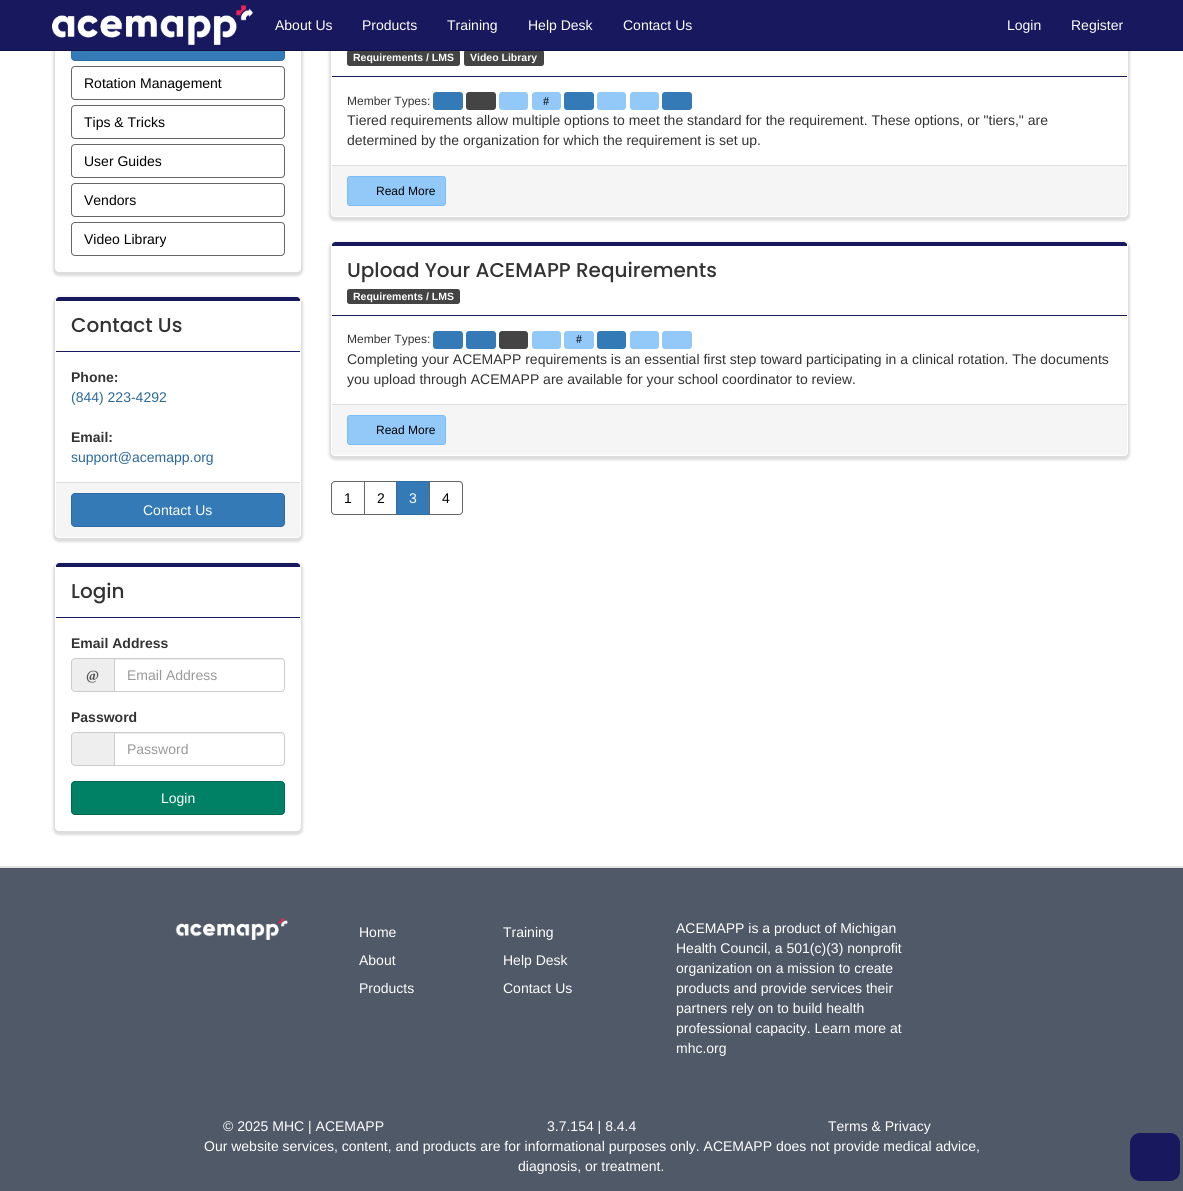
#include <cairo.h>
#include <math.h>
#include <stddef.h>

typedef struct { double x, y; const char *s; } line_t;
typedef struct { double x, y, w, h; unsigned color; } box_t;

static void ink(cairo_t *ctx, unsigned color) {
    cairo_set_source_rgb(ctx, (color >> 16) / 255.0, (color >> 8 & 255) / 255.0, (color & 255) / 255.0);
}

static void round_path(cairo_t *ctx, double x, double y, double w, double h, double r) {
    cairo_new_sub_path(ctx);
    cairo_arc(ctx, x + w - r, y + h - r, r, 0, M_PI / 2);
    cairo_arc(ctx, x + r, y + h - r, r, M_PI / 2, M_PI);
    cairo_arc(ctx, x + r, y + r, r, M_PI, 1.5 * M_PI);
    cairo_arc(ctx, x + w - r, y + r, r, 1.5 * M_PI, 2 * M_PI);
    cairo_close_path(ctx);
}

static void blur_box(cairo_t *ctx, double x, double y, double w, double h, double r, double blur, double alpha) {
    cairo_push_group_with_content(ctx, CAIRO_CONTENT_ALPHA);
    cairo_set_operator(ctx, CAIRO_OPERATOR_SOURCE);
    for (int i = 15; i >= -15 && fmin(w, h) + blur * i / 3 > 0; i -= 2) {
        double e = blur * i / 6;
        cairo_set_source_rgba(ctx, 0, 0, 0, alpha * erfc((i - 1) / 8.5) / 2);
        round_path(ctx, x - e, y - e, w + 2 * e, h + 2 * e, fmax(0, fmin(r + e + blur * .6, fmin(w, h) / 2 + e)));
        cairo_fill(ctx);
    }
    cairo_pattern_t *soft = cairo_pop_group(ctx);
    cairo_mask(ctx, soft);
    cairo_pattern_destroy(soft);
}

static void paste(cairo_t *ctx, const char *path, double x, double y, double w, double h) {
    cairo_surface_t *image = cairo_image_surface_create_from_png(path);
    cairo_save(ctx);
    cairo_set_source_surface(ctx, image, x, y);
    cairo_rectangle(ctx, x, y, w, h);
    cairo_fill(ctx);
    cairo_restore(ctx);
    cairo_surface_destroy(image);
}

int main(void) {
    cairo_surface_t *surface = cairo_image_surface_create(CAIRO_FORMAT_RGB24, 1183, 1191);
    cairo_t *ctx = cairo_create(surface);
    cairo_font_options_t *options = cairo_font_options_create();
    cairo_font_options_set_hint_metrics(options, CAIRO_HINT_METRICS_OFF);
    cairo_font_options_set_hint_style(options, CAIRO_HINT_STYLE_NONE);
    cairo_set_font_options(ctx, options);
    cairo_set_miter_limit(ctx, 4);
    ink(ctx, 0xFFFFFF);
    cairo_paint(ctx);
    ink(ctx, 0xDDDDDD);
    blur_box(ctx, 53, -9, 250, 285, 6, 1, 1);
    ink(ctx, 0xFFFFFF);
    round_path(ctx, 55, -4, 246, 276, 4);
    cairo_fill(ctx);
    ink(ctx, 0x337AB7);
    round_path(ctx, 71.5, 27.5, 213, 33, 3.5);
    cairo_fill_preserve(ctx);
    ink(ctx, 0x2E6DA4);
    cairo_set_line_width(ctx, 1);
    cairo_stroke(ctx);
    ink(ctx, 0xDDDDDD);
    blur_box(ctx, 329, 4, 801, 217, 6, 1, 1);
    ink(ctx, 0xFFFFFF);
    round_path(ctx, 331, 4, 797, 213, 4);
    cairo_fill(ctx);
    ink(ctx, 0x17185E);
    cairo_rectangle(ctx, 0, 0, 1183, 50);
    cairo_fill(ctx);
    ink(ctx, 0x444444);
    round_path(ctx, 347, 50, 113, 16, 2.5);
    cairo_fill(ctx);
    round_path(ctx, 464, 50, 80, 16, 2.5);
    cairo_fill(ctx);
    ink(ctx, 0x101143);
    cairo_rectangle(ctx, 0, 50, 1183, 1);
    cairo_fill(ctx);
    paste(ctx, "media/1.png", 52, 5, 201, 40);
    cairo_select_font_face(ctx, "Liberation Sans", CAIRO_FONT_SLANT_NORMAL, CAIRO_FONT_WEIGHT_NORMAL);
    cairo_set_font_size(ctx, 14);
    ink(ctx, 0xFFFFFF);
    {
        static const line_t items[] = {
            {275, 30, "About Us"},
            {362, 30, "Products"},
            {447, 30, "Training"},
            {528, 30, "Help Desk"},
            {623, 30, "Contact Us"},
            {1007, 30, "Login"},
            {1071, 30, "Register"},
        };
        for (size_t i = 0; i < sizeof items / sizeof *items; i++) {
            cairo_move_to(ctx, items[i].x, items[i].y);
            cairo_show_text(ctx, items[i].s);
        }
    }
    round_path(ctx, 71.5, 66.5, 213, 33, 3.5);
    ink(ctx, 0x666666);
    cairo_stroke(ctx);
    ink(ctx, 0x000000);
    cairo_move_to(ctx, 84, 88);
    cairo_show_text(ctx, "Rotation Management");
    round_path(ctx, 71.5, 105.5, 213, 33, 3.5);
    ink(ctx, 0x666666);
    cairo_stroke(ctx);
    ink(ctx, 0x000000);
    cairo_move_to(ctx, 84, 127);
    cairo_show_text(ctx, "Tips & Tricks");
    round_path(ctx, 71.5, 144.5, 213, 33, 3.5);
    ink(ctx, 0x666666);
    cairo_stroke(ctx);
    ink(ctx, 0x000000);
    cairo_move_to(ctx, 84, 166);
    cairo_show_text(ctx, "User Guides");
    round_path(ctx, 71.5, 183.5, 213, 33, 3.5);
    ink(ctx, 0x666666);
    cairo_stroke(ctx);
    ink(ctx, 0x000000);
    cairo_move_to(ctx, 84, 205);
    cairo_show_text(ctx, "Vendors");
    round_path(ctx, 71.5, 222.5, 213, 33, 3.5);
    ink(ctx, 0x666666);
    cairo_stroke(ctx);
    ink(ctx, 0x000000);
    cairo_move_to(ctx, 84, 244);
    cairo_show_text(ctx, "Video Library");
    ink(ctx, 0xDDDDDD);
    blur_box(ctx, 53, 297, 250, 245, 6, 1, 1);
    ink(ctx, 0xFFFFFF);
    round_path(ctx, 55, 297, 246, 241, 4);
    cairo_fill(ctx);
    ink(ctx, 0x17185E);
    cairo_new_path(ctx);
    cairo_move_to(ctx, 59, 297);
    cairo_curve_to(ctx, 58, 297, 57, 298, 56, 299);
    cairo_line_to(ctx, 56, 300);
    cairo_line_to(ctx, 59, 299);
    cairo_line_to(ctx, 298, 299);
    cairo_line_to(ctx, 300, 300);
    cairo_line_to(ctx, 300, 299);
    cairo_curve_to(ctx, 299, 298, 298, 297, 297, 297);
    cairo_close_path(ctx);
    cairo_fill(ctx);
    cairo_rectangle(ctx, 56, 299, 244, 2);
    cairo_fill(ctx);
    cairo_rectangle(ctx, 56, 351, 244, 1);
    cairo_fill(ctx);
    cairo_select_font_face(ctx, "Poppins Medium", CAIRO_FONT_SLANT_NORMAL, CAIRO_FONT_WEIGHT_NORMAL);
    cairo_set_font_size(ctx, 20);
    ink(ctx, 0x333333);
    cairo_move_to(ctx, 71, 332);
    cairo_show_text(ctx, "Contact Us");
    cairo_select_font_face(ctx, "Liberation Sans", CAIRO_FONT_SLANT_NORMAL, CAIRO_FONT_WEIGHT_BOLD);
    cairo_set_font_size(ctx, 14);
    cairo_move_to(ctx, 71, 382);
    cairo_show_text(ctx, "Phone:");
    cairo_select_font_face(ctx, "Liberation Sans", CAIRO_FONT_SLANT_NORMAL, CAIRO_FONT_WEIGHT_NORMAL);
    ink(ctx, 0x2B689C);
    cairo_move_to(ctx, 71, 402);
    cairo_show_text(ctx, "(844) 223-4292");
    cairo_select_font_face(ctx, "Liberation Sans", CAIRO_FONT_SLANT_NORMAL, CAIRO_FONT_WEIGHT_BOLD);
    ink(ctx, 0x333333);
    cairo_move_to(ctx, 71, 442);
    cairo_show_text(ctx, "Email:");
    cairo_select_font_face(ctx, "Liberation Sans", CAIRO_FONT_SLANT_NORMAL, CAIRO_FONT_WEIGHT_NORMAL);
    ink(ctx, 0x2B689C);
    cairo_move_to(ctx, 71, 462);
    cairo_show_text(ctx, "support@acemapp.org");
    ink(ctx, 0xF5F5F5);
    cairo_new_path(ctx);
    cairo_move_to(ctx, 56, 482);
    cairo_line_to(ctx, 300, 482);
    cairo_line_to(ctx, 300, 534);
    cairo_curve_to(ctx, 300, 535.5, 298.5, 537, 297, 537);
    cairo_line_to(ctx, 59, 537);
    cairo_curve_to(ctx, 57.5, 537, 56, 535.5, 56, 534);
    cairo_close_path(ctx);
    cairo_fill(ctx);
    ink(ctx, 0xDDDDDD);
    cairo_rectangle(ctx, 56, 482, 244, 1);
    cairo_fill(ctx);
    ink(ctx, 0x337AB7);
    round_path(ctx, 71.5, 493.5, 213, 33, 3.5);
    cairo_fill_preserve(ctx);
    ink(ctx, 0x2E6DA4);
    cairo_stroke(ctx);
    ink(ctx, 0xFFFFFF);
    cairo_move_to(ctx, 143, 515);
    cairo_show_text(ctx, "Contact Us");
    ink(ctx, 0xDDDDDD);
    blur_box(ctx, 53, 563, 250, 272, 6, 1, 1);
    ink(ctx, 0xFFFFFF);
    round_path(ctx, 55, 563, 246, 268, 4);
    cairo_fill(ctx);
    ink(ctx, 0x17185E);
    cairo_new_path(ctx);
    cairo_move_to(ctx, 59, 563);
    cairo_curve_to(ctx, 58, 563, 57, 564, 56, 565);
    cairo_line_to(ctx, 56, 566);
    cairo_line_to(ctx, 59, 565);
    cairo_line_to(ctx, 298, 565);
    cairo_line_to(ctx, 300, 566);
    cairo_line_to(ctx, 300, 565);
    cairo_curve_to(ctx, 299, 564, 298, 563, 297, 563);
    cairo_close_path(ctx);
    cairo_fill(ctx);
    cairo_rectangle(ctx, 56, 565, 244, 2);
    cairo_fill(ctx);
    cairo_rectangle(ctx, 56, 617, 244, 1);
    cairo_fill(ctx);
    cairo_select_font_face(ctx, "Poppins Medium", CAIRO_FONT_SLANT_NORMAL, CAIRO_FONT_WEIGHT_NORMAL);
    cairo_set_font_size(ctx, 20);
    ink(ctx, 0x333333);
    cairo_move_to(ctx, 71, 598);
    cairo_show_text(ctx, "Login");
    cairo_select_font_face(ctx, "Liberation Sans", CAIRO_FONT_SLANT_NORMAL, CAIRO_FONT_WEIGHT_BOLD);
    cairo_set_font_size(ctx, 14);
    cairo_move_to(ctx, 71, 648);
    cairo_show_text(ctx, "Email Address");
    ink(ctx, 0xEEEEEE);
    cairo_new_path(ctx);
    cairo_move_to(ctx, 75, 658);
    cairo_line_to(ctx, 114, 658);
    cairo_line_to(ctx, 114, 692);
    cairo_line_to(ctx, 75, 692);
    cairo_curve_to(ctx, 73, 692, 71, 690, 71, 688);
    cairo_line_to(ctx, 71, 662);
    cairo_curve_to(ctx, 71, 660, 73, 658, 75, 658);
    cairo_close_path(ctx);
    cairo_fill(ctx);
    ink(ctx, 0xCCCCCC);
    cairo_set_fill_rule(ctx, CAIRO_FILL_RULE_EVEN_ODD);
    cairo_new_path(ctx);
    cairo_move_to(ctx, 75, 658);
    cairo_line_to(ctx, 114, 658);
    cairo_line_to(ctx, 114, 692);
    cairo_line_to(ctx, 75, 692);
    cairo_curve_to(ctx, 73, 692, 71, 690, 71, 688);
    cairo_line_to(ctx, 71, 662);
    cairo_curve_to(ctx, 71, 660, 73, 658, 75, 658);
    cairo_close_path(ctx);
    cairo_move_to(ctx, 75, 659);
    cairo_line_to(ctx, 114, 659);
    cairo_line_to(ctx, 114, 691);
    cairo_line_to(ctx, 75, 691);
    cairo_curve_to(ctx, 73, 691, 72, 690, 72, 688);
    cairo_line_to(ctx, 72, 662);
    cairo_curve_to(ctx, 72, 660, 73, 659, 75, 659);
    cairo_close_path(ctx);
    cairo_fill(ctx);
    cairo_select_font_face(ctx, "Liberation Serif", CAIRO_FONT_SLANT_NORMAL, CAIRO_FONT_WEIGHT_BOLD);
    ink(ctx, 0x555555);
    cairo_move_to(ctx, 86, 680);
    cairo_show_text(ctx, "@");
    ink(ctx, 0xECECEC);
    cairo_set_fill_rule(ctx, CAIRO_FILL_RULE_WINDING);
    cairo_new_path(ctx);
    cairo_move_to(ctx, 115, 660);
    cairo_line_to(ctx, 281, 660);
    cairo_curve_to(ctx, 283, 660, 284, 661, 284, 663);
    cairo_curve_to(ctx, 284, 661, 283, 659, 281, 659);
    cairo_line_to(ctx, 115, 659);
    cairo_close_path(ctx);
    cairo_fill(ctx);
    cairo_new_path(ctx);
    cairo_move_to(ctx, 114.5, 658.5);
    cairo_line_to(ctx, 281, 658.5);
    cairo_curve_to(ctx, 283, 658.5, 284.5, 660, 284.5, 662);
    cairo_line_to(ctx, 284.5, 688);
    cairo_curve_to(ctx, 284.5, 690, 283, 691.5, 281, 691.5);
    cairo_line_to(ctx, 114.5, 691.5);
    cairo_close_path(ctx);
    ink(ctx, 0xCCCCCC);
    cairo_stroke(ctx);
    cairo_select_font_face(ctx, "Liberation Sans", CAIRO_FONT_SLANT_NORMAL, CAIRO_FONT_WEIGHT_NORMAL);
    ink(ctx, 0x999999);
    cairo_move_to(ctx, 127, 680);
    cairo_show_text(ctx, "Email Address");
    cairo_select_font_face(ctx, "Liberation Sans", CAIRO_FONT_SLANT_NORMAL, CAIRO_FONT_WEIGHT_BOLD);
    ink(ctx, 0x333333);
    cairo_move_to(ctx, 71, 722);
    cairo_show_text(ctx, "Password");
    ink(ctx, 0xEEEEEE);
    cairo_new_path(ctx);
    cairo_move_to(ctx, 75, 732);
    cairo_line_to(ctx, 114, 732);
    cairo_line_to(ctx, 114, 766);
    cairo_line_to(ctx, 75, 766);
    cairo_curve_to(ctx, 73, 766, 71, 764, 71, 762);
    cairo_line_to(ctx, 71, 736);
    cairo_curve_to(ctx, 71, 734, 73, 732, 75, 732);
    cairo_close_path(ctx);
    cairo_fill(ctx);
    ink(ctx, 0xCCCCCC);
    cairo_set_fill_rule(ctx, CAIRO_FILL_RULE_EVEN_ODD);
    cairo_new_path(ctx);
    cairo_move_to(ctx, 75, 732);
    cairo_line_to(ctx, 114, 732);
    cairo_line_to(ctx, 114, 766);
    cairo_line_to(ctx, 75, 766);
    cairo_curve_to(ctx, 73, 766, 71, 764, 71, 762);
    cairo_line_to(ctx, 71, 736);
    cairo_curve_to(ctx, 71, 734, 73, 732, 75, 732);
    cairo_close_path(ctx);
    cairo_move_to(ctx, 75, 733);
    cairo_line_to(ctx, 114, 733);
    cairo_line_to(ctx, 114, 765);
    cairo_line_to(ctx, 75, 765);
    cairo_curve_to(ctx, 73, 765, 72, 764, 72, 762);
    cairo_line_to(ctx, 72, 736);
    cairo_curve_to(ctx, 72, 734, 73, 733, 75, 733);
    cairo_close_path(ctx);
    cairo_fill(ctx);
    ink(ctx, 0xECECEC);
    cairo_set_fill_rule(ctx, CAIRO_FILL_RULE_WINDING);
    cairo_new_path(ctx);
    cairo_move_to(ctx, 115, 734);
    cairo_line_to(ctx, 281, 734);
    cairo_curve_to(ctx, 283, 734, 284, 735, 284, 737);
    cairo_curve_to(ctx, 284, 735, 283, 733, 281, 733);
    cairo_line_to(ctx, 115, 733);
    cairo_close_path(ctx);
    cairo_fill(ctx);
    cairo_new_path(ctx);
    cairo_move_to(ctx, 114.5, 732.5);
    cairo_line_to(ctx, 281, 732.5);
    cairo_curve_to(ctx, 283, 732.5, 284.5, 734, 284.5, 736);
    cairo_line_to(ctx, 284.5, 762);
    cairo_curve_to(ctx, 284.5, 764, 283, 765.5, 281, 765.5);
    cairo_line_to(ctx, 114.5, 765.5);
    cairo_close_path(ctx);
    ink(ctx, 0xCCCCCC);
    cairo_stroke(ctx);
    cairo_select_font_face(ctx, "Liberation Sans", CAIRO_FONT_SLANT_NORMAL, CAIRO_FONT_WEIGHT_NORMAL);
    ink(ctx, 0x999999);
    cairo_move_to(ctx, 127, 754);
    cairo_show_text(ctx, "Password");
    ink(ctx, 0x008064);
    round_path(ctx, 71.5, 781.5, 213, 33, 3.5);
    cairo_fill_preserve(ctx);
    ink(ctx, 0x006750);
    cairo_stroke(ctx);
    ink(ctx, 0xFFFFFF);
    cairo_move_to(ctx, 161, 803);
    cairo_show_text(ctx, "Login");
    ink(ctx, 0x17185E);
    cairo_rectangle(ctx, 332, 76, 795, 1);
    cairo_fill(ctx);
    cairo_select_font_face(ctx, "Liberation Sans", CAIRO_FONT_SLANT_NORMAL, CAIRO_FONT_WEIGHT_BOLD);
    cairo_set_font_size(ctx, 10.5);
    ink(ctx, 0xFFFFFF);
    cairo_move_to(ctx, 353, 61);
    cairo_show_text(ctx, "Requirements / LMS");
    cairo_move_to(ctx, 470, 61);
    cairo_show_text(ctx, "Video Library");
    cairo_select_font_face(ctx, "Liberation Sans", CAIRO_FONT_SLANT_NORMAL, CAIRO_FONT_WEIGHT_NORMAL);
    cairo_set_font_size(ctx, 12);
    ink(ctx, 0x333333);
    cairo_move_to(ctx, 347, 105);
    cairo_show_text(ctx, "Member Types:");
    ink(ctx, 0x337AB7);
    round_path(ctx, 433, 92, 30, 18, 3);
    cairo_fill(ctx);
    ink(ctx, 0x444444);
    round_path(ctx, 466, 92, 30, 18, 3);
    cairo_fill(ctx);
    ink(ctx, 0x92C9F9);
    round_path(ctx, 499, 92, 29, 18, 3);
    cairo_fill(ctx);
    round_path(ctx, 532, 92, 29, 18, 3);
    cairo_fill(ctx);
    cairo_select_font_face(ctx, "Liberation Serif", CAIRO_FONT_SLANT_NORMAL, CAIRO_FONT_WEIGHT_NORMAL);
    ink(ctx, 0x000000);
    cairo_move_to(ctx, 543, 105);
    cairo_show_text(ctx, "#");
    ink(ctx, 0x337AB7);
    round_path(ctx, 564, 92, 30, 18, 3);
    cairo_fill(ctx);
    ink(ctx, 0x92C9F9);
    round_path(ctx, 597, 92, 29, 18, 3);
    cairo_fill(ctx);
    round_path(ctx, 630, 92, 29, 18, 3);
    cairo_fill(ctx);
    ink(ctx, 0x337AB7);
    round_path(ctx, 662, 92, 30, 18, 3);
    cairo_fill(ctx);
    cairo_select_font_face(ctx, "Liberation Sans", CAIRO_FONT_SLANT_NORMAL, CAIRO_FONT_WEIGHT_NORMAL);
    cairo_set_font_size(ctx, 14);
    ink(ctx, 0x333333);
    cairo_move_to(ctx, 347, 125);
    cairo_show_text(ctx, "Tiered requirements allow multiple options to meet the standard for the requirement. These options, or \"tiers,\" are");
    cairo_move_to(ctx, 347, 145);
    cairo_show_text(ctx, "determined by the organization for which the requirement is set up.");
    ink(ctx, 0xF5F5F5);
    cairo_new_path(ctx);
    cairo_move_to(ctx, 332, 165);
    cairo_line_to(ctx, 1127, 165);
    cairo_line_to(ctx, 1127, 213);
    cairo_curve_to(ctx, 1127, 214.5, 1125.5, 216, 1124, 216);
    cairo_line_to(ctx, 335, 216);
    cairo_curve_to(ctx, 333.5, 216, 332, 214.5, 332, 213);
    cairo_close_path(ctx);
    cairo_fill(ctx);
    ink(ctx, 0xDDDDDD);
    cairo_rectangle(ctx, 332, 165, 795, 1);
    cairo_fill(ctx);
    ink(ctx, 0x92C9F9);
    round_path(ctx, 347.5, 176.5, 98, 29, 2.5);
    cairo_fill_preserve(ctx);
    ink(ctx, 0x7ABDF8);
    cairo_stroke(ctx);
    cairo_set_font_size(ctx, 12);
    ink(ctx, 0x000000);
    cairo_move_to(ctx, 376, 195);
    cairo_show_text(ctx, "Read More");
    ink(ctx, 0xDDDDDD);
    blur_box(ctx, 329, 242, 801, 218, 6, 1, 1);
    ink(ctx, 0xFFFFFF);
    round_path(ctx, 331, 242, 797, 214, 4);
    cairo_fill(ctx);
    ink(ctx, 0x17185E);
    cairo_new_path(ctx);
    cairo_move_to(ctx, 335, 242);
    cairo_curve_to(ctx, 334, 242, 333, 243, 332, 244);
    cairo_line_to(ctx, 332, 245);
    cairo_line_to(ctx, 335, 244);
    cairo_line_to(ctx, 1124, 244);
    cairo_line_to(ctx, 1127, 245);
    cairo_line_to(ctx, 1127, 244);
    cairo_curve_to(ctx, 1126, 243, 1125, 242, 1124, 242);
    cairo_close_path(ctx);
    cairo_fill(ctx);
    cairo_rectangle(ctx, 332, 244, 795, 2);
    cairo_fill(ctx);
    cairo_rectangle(ctx, 332, 315, 795, 1);
    cairo_fill(ctx);
    cairo_select_font_face(ctx, "Poppins Medium", CAIRO_FONT_SLANT_NORMAL, CAIRO_FONT_WEIGHT_NORMAL);
    cairo_set_font_size(ctx, 20);
    ink(ctx, 0x333333);
    cairo_move_to(ctx, 347, 277);
    cairo_show_text(ctx, "Upload Your ACEMAPP Requirements");
    ink(ctx, 0x444444);
    round_path(ctx, 347, 289, 113, 15, 2.5);
    cairo_fill(ctx);
    cairo_select_font_face(ctx, "Liberation Sans", CAIRO_FONT_SLANT_NORMAL, CAIRO_FONT_WEIGHT_BOLD);
    cairo_set_font_size(ctx, 10.5);
    ink(ctx, 0xFFFFFF);
    cairo_move_to(ctx, 353, 300);
    cairo_show_text(ctx, "Requirements / LMS");
    cairo_select_font_face(ctx, "Liberation Sans", CAIRO_FONT_SLANT_NORMAL, CAIRO_FONT_WEIGHT_NORMAL);
    cairo_set_font_size(ctx, 12);
    ink(ctx, 0x333333);
    cairo_move_to(ctx, 347, 343);
    cairo_show_text(ctx, "Member Types:");
    ink(ctx, 0x337AB7);
    round_path(ctx, 433, 331, 30, 18, 3);
    cairo_fill(ctx);
    round_path(ctx, 466, 331, 30, 18, 3);
    cairo_fill(ctx);
    ink(ctx, 0x444444);
    round_path(ctx, 499, 331, 29, 18, 3);
    cairo_fill(ctx);
    ink(ctx, 0x92C9F9);
    round_path(ctx, 532, 331, 29, 18, 3);
    cairo_fill(ctx);
    round_path(ctx, 564, 331, 30, 18, 3);
    cairo_fill(ctx);
    cairo_select_font_face(ctx, "Liberation Serif", CAIRO_FONT_SLANT_NORMAL, CAIRO_FONT_WEIGHT_NORMAL);
    ink(ctx, 0x000000);
    cairo_move_to(ctx, 576, 343);
    cairo_show_text(ctx, "#");
    ink(ctx, 0x337AB7);
    round_path(ctx, 597, 331, 29, 18, 3);
    cairo_fill(ctx);
    ink(ctx, 0x92C9F9);
    round_path(ctx, 630, 331, 29, 18, 3);
    cairo_fill(ctx);
    round_path(ctx, 662, 331, 30, 18, 3);
    cairo_fill(ctx);
    cairo_select_font_face(ctx, "Liberation Sans", CAIRO_FONT_SLANT_NORMAL, CAIRO_FONT_WEIGHT_NORMAL);
    cairo_set_font_size(ctx, 14);
    ink(ctx, 0x333333);
    cairo_move_to(ctx, 347, 364);
    cairo_show_text(ctx, "Completing your ACEMAPP requirements is an essential first step toward participating in a clinical rotation. The documents");
    cairo_move_to(ctx, 347, 384);
    cairo_show_text(ctx, "you upload through ACEMAPP are available for your school coordinator to review.");
    ink(ctx, 0xF5F5F5);
    cairo_new_path(ctx);
    cairo_move_to(ctx, 332, 404);
    cairo_line_to(ctx, 1127, 404);
    cairo_line_to(ctx, 1127, 452);
    cairo_curve_to(ctx, 1127, 453.5, 1125.5, 455, 1124, 455);
    cairo_line_to(ctx, 335, 455);
    cairo_curve_to(ctx, 333.5, 455, 332, 453.5, 332, 452);
    cairo_close_path(ctx);
    cairo_fill(ctx);
    ink(ctx, 0xDDDDDD);
    cairo_rectangle(ctx, 332, 404, 795, 1);
    cairo_fill(ctx);
    ink(ctx, 0x92C9F9);
    round_path(ctx, 347.5, 415.5, 98, 29, 2.5);
    cairo_fill_preserve(ctx);
    ink(ctx, 0x7ABDF8);
    cairo_stroke(ctx);
    cairo_set_font_size(ctx, 12);
    ink(ctx, 0x000000);
    cairo_move_to(ctx, 376, 434);
    cairo_show_text(ctx, "Read More");
    cairo_new_path(ctx);
    cairo_move_to(ctx, 335, 481.5);
    cairo_line_to(ctx, 364.5, 481.5);
    cairo_line_to(ctx, 364.5, 514.5);
    cairo_line_to(ctx, 335, 514.5);
    cairo_curve_to(ctx, 333, 514.5, 331.5, 513, 331.5, 511);
    cairo_line_to(ctx, 331.5, 485);
    cairo_curve_to(ctx, 331.5, 483, 333, 481.5, 335, 481.5);
    cairo_close_path(ctx);
    ink(ctx, 0x666666);
    cairo_stroke(ctx);
    cairo_set_font_size(ctx, 14);
    ink(ctx, 0x000000);
    cairo_move_to(ctx, 344, 503);
    cairo_show_text(ctx, "1");
    cairo_rectangle(ctx, 364.5, 481.5, 32, 33);
    ink(ctx, 0x666666);
    cairo_stroke(ctx);
    ink(ctx, 0x000000);
    cairo_move_to(ctx, 377, 503);
    cairo_show_text(ctx, "2");
    ink(ctx, 0x337AB7);
    cairo_rectangle(ctx, 396.5, 481.5, 33, 33);
    cairo_fill_preserve(ctx);
    ink(ctx, 0x2E6DA4);
    cairo_stroke(ctx);
    ink(ctx, 0xFFFFFF);
    cairo_move_to(ctx, 409, 503);
    cairo_show_text(ctx, "3");
    cairo_new_path(ctx);
    cairo_move_to(ctx, 429.5, 481.5);
    cairo_line_to(ctx, 459, 481.5);
    cairo_curve_to(ctx, 461, 481.5, 462.5, 483, 462.5, 485);
    cairo_line_to(ctx, 462.5, 511);
    cairo_curve_to(ctx, 462.5, 513, 461, 514.5, 459, 514.5);
    cairo_line_to(ctx, 429.5, 514.5);
    cairo_close_path(ctx);
    cairo_fill_preserve(ctx);
    ink(ctx, 0x666666);
    cairo_stroke(ctx);
    ink(ctx, 0x000000);
    cairo_move_to(ctx, 442, 503);
    cairo_show_text(ctx, "4");
    {
        static const box_t items[] = {
            {0, 869, 1183, 322, 0x505968},
            {0, 868, 1183, 1, 0x4C5563},
            {0, 866, 1183, 2, 0xE3E3E3},
        };
        for (size_t i = 0; i < sizeof items / sizeof *items; i++) {
            ink(ctx, items[i].color);
            cairo_rectangle(ctx, items[i].x, items[i].y, items[i].w, items[i].h);
            cairo_fill(ctx);
        }
    }
    paste(ctx, "media/2.png", 175, 918, 114, 22);
    ink(ctx, 0xFFFFFF);
    {
        static const line_t items[] = {
            {359, 937, "Home"},
            {359, 965, "About"},
            {359, 993, "Products"},
            {503, 937, "Training"},
            {503, 965, "Help Desk"},
            {503, 993, "Contact Us"},
            {676, 933, "ACEMAPP is a product of Michigan"},
            {676, 953, "Health Council, a 501(c)(3) nonprofit"},
            {676, 973, "organization on a mission to create"},
            {676, 993, "products and provide services their"},
            {676, 1013, "partners rely on to build health"},
            {676, 1033, "professional capacity. Learn more at"},
            {676, 1053, "mhc.org"},
            {223, 1131, "© 2025 MHC | ACEMAPP"},
            {547, 1131, "3.7.154 | 8.4.4"},
            {828, 1131, "Terms & Privacy"},
            {204, 1151, "Our website services, content, and products are for informational purposes only. ACEMAPP does not provide medical advice,"},
            {518, 1171, "diagnosis, or treatment."},
        };
        for (size_t i = 0; i < sizeof items / sizeof *items; i++) {
            cairo_move_to(ctx, items[i].x, items[i].y);
            cairo_show_text(ctx, items[i].s);
        }
    }
    ink(ctx, 0x17185E);
    round_path(ctx, 1130, 1133, 50, 48, 10);
    cairo_fill(ctx);
    cairo_surface_write_to_png(surface, "image.png");
    cairo_font_options_destroy(options);
    cairo_destroy(ctx);
    cairo_surface_destroy(surface);
    return 0;
}
